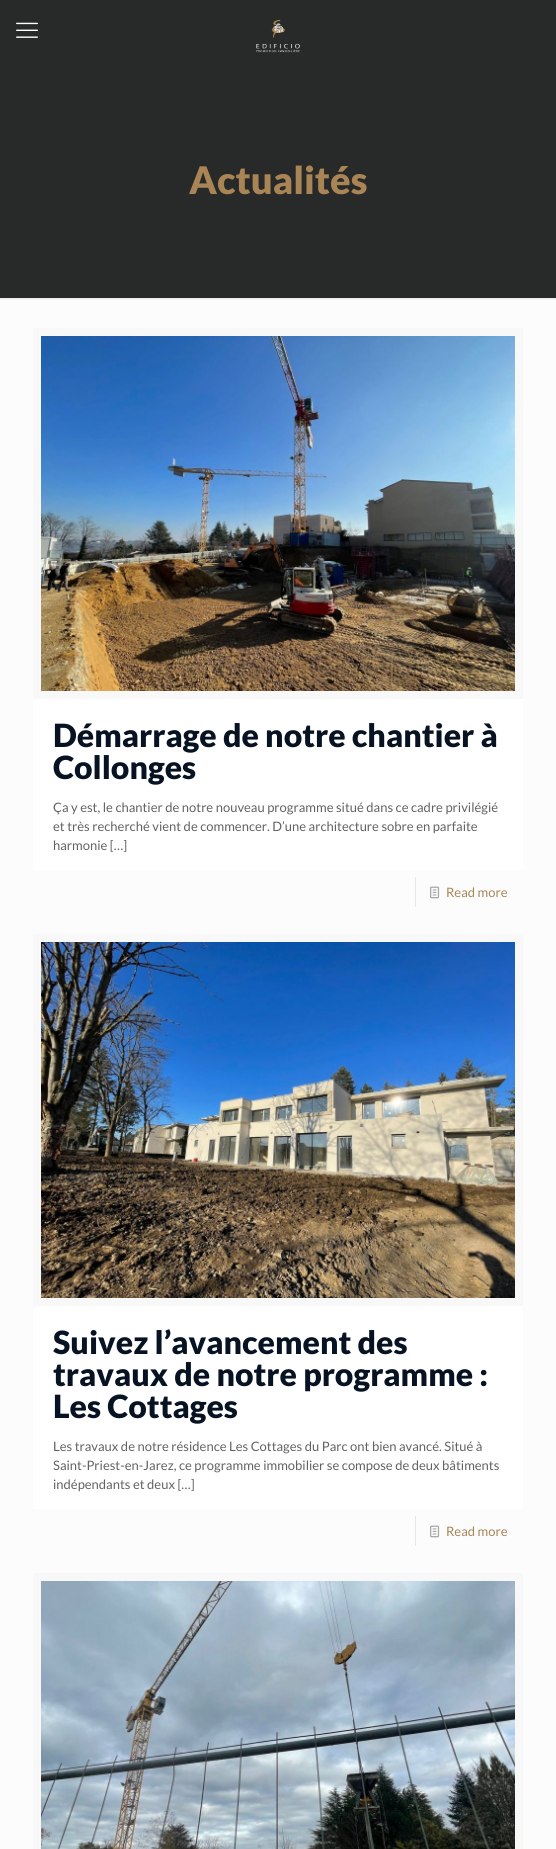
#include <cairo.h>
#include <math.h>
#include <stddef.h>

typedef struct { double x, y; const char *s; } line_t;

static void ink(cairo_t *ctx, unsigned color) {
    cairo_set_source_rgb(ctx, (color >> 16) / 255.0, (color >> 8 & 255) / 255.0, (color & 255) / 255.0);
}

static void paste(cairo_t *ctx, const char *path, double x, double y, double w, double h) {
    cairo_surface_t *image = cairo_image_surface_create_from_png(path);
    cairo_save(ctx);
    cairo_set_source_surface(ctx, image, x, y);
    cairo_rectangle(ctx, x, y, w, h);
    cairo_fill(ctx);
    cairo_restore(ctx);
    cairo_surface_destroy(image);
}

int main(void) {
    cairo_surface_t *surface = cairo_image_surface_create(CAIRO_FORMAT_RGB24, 556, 1849);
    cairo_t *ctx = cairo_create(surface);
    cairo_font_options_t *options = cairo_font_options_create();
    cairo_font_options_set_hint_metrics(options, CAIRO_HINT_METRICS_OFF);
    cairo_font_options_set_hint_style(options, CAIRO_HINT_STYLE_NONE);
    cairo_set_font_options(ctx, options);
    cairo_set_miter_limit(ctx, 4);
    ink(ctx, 0xFCFCFC);
    cairo_paint(ctx);
    ink(ctx, 0x282929);
    cairo_rectangle(ctx, 0, 0, 556, 298);
    cairo_fill(ctx);
    paste(ctx, "media/1.png", 16, 22, 22, 16);
    paste(ctx, "media/2.png", 256, 20, 44, 33);
    cairo_select_font_face(ctx, "Lato Black", CAIRO_FONT_SLANT_NORMAL, CAIRO_FONT_WEIGHT_NORMAL);
    cairo_set_font_size(ctx, 38);
    ink(ctx, 0xA98556);
    cairo_move_to(ctx, 189, 194);
    cairo_show_text(ctx, "Actualités");
    paste(ctx, "media/3.png", 0, 298, 556, 2);
    ink(ctx, 0xFFFFFF);
    cairo_rectangle(ctx, 33, 699, 490, 171);
    cairo_fill(ctx);
    cairo_rectangle(ctx, 37, 332, 482, 363);
    ink(ctx, 0xF8F8F8);
    cairo_set_line_width(ctx, 8);
    cairo_stroke(ctx);
    paste(ctx, "media/4.png", 41, 336, 474, 355);
    cairo_set_font_size(ctx, 32);
    ink(ctx, 0x071323);
    cairo_move_to(ctx, 53, 747);
    cairo_show_text(ctx, "Démarrage de notre chantier à");
    cairo_move_to(ctx, 53, 779);
    cairo_show_text(ctx, "Collonges");
    cairo_select_font_face(ctx, "Lato", CAIRO_FONT_SLANT_NORMAL, CAIRO_FONT_WEIGHT_NORMAL);
    cairo_set_font_size(ctx, 13);
    ink(ctx, 0x626262);
    {
        static const line_t items[] = {
            {53, 812, "Ça y est, le chantier de notre nouveau programme situé dans ce cadre privilégié"},
            {53, 831, "et très recherché vient de commencer. D’une architecture sobre en parfaite"},
            {53, 850, "harmonie […]"},
        };
        for (size_t i = 0; i < sizeof items / sizeof *items; i++) {
            cairo_move_to(ctx, items[i].x, items[i].y);
            cairo_show_text(ctx, items[i].s);
        }
    }
    ink(ctx, 0xE6E6E6);
    cairo_rectangle(ctx, 415, 877, 1, 30);
    cairo_fill(ctx);
    paste(ctx, "media/5.png", 430, 886, 10, 13);
    ink(ctx, 0xA98556);
    cairo_move_to(ctx, 446, 897);
    cairo_show_text(ctx, "Read more");
    ink(ctx, 0xFFFFFF);
    cairo_rectangle(ctx, 33, 1306, 490, 203);
    cairo_fill(ctx);
    cairo_rectangle(ctx, 37, 938, 482, 364);
    ink(ctx, 0xF8F8F8);
    cairo_stroke(ctx);
    paste(ctx, "media/6.png", 41, 942, 474, 356);
    cairo_select_font_face(ctx, "Lato Black", CAIRO_FONT_SLANT_NORMAL, CAIRO_FONT_WEIGHT_NORMAL);
    cairo_set_font_size(ctx, 32);
    ink(ctx, 0x071323);
    {
        static const line_t items[] = {
            {53, 1354, "Suivez l’avancement des"},
            {53, 1386, "travaux de notre programme :"},
            {53, 1418, "Les Cottages"},
        };
        for (size_t i = 0; i < sizeof items / sizeof *items; i++) {
            cairo_move_to(ctx, items[i].x, items[i].y);
            cairo_show_text(ctx, items[i].s);
        }
    }
    cairo_select_font_face(ctx, "Lato", CAIRO_FONT_SLANT_NORMAL, CAIRO_FONT_WEIGHT_NORMAL);
    cairo_set_font_size(ctx, 13);
    ink(ctx, 0x626262);
    {
        static const line_t items[] = {
            {53, 1451, "Les travaux de notre résidence Les Cottages du Parc ont bien avancé. Situé à"},
            {53, 1470, "Saint-Priest-en-Jarez, ce programme immobilier se compose de deux bâtiments"},
            {53, 1489, "indépendants et deux […]"},
        };
        for (size_t i = 0; i < sizeof items / sizeof *items; i++) {
            cairo_move_to(ctx, items[i].x, items[i].y);
            cairo_show_text(ctx, items[i].s);
        }
    }
    ink(ctx, 0xE6E6E6);
    cairo_rectangle(ctx, 415, 1516, 1, 30);
    cairo_fill(ctx);
    paste(ctx, "media/5.png", 430, 1525, 10, 13);
    ink(ctx, 0xA98556);
    cairo_move_to(ctx, 446, 1536);
    cairo_show_text(ctx, "Read more");
    cairo_rectangle(ctx, 37, 1577, 482, 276);
    ink(ctx, 0xF8F8F8);
    cairo_stroke(ctx);
    paste(ctx, "media/7.png", 41, 1581, 474, 268);
    cairo_surface_write_to_png(surface, "image.png");
    cairo_font_options_destroy(options);
    cairo_destroy(ctx);
    cairo_surface_destroy(surface);
    return 0;
}
